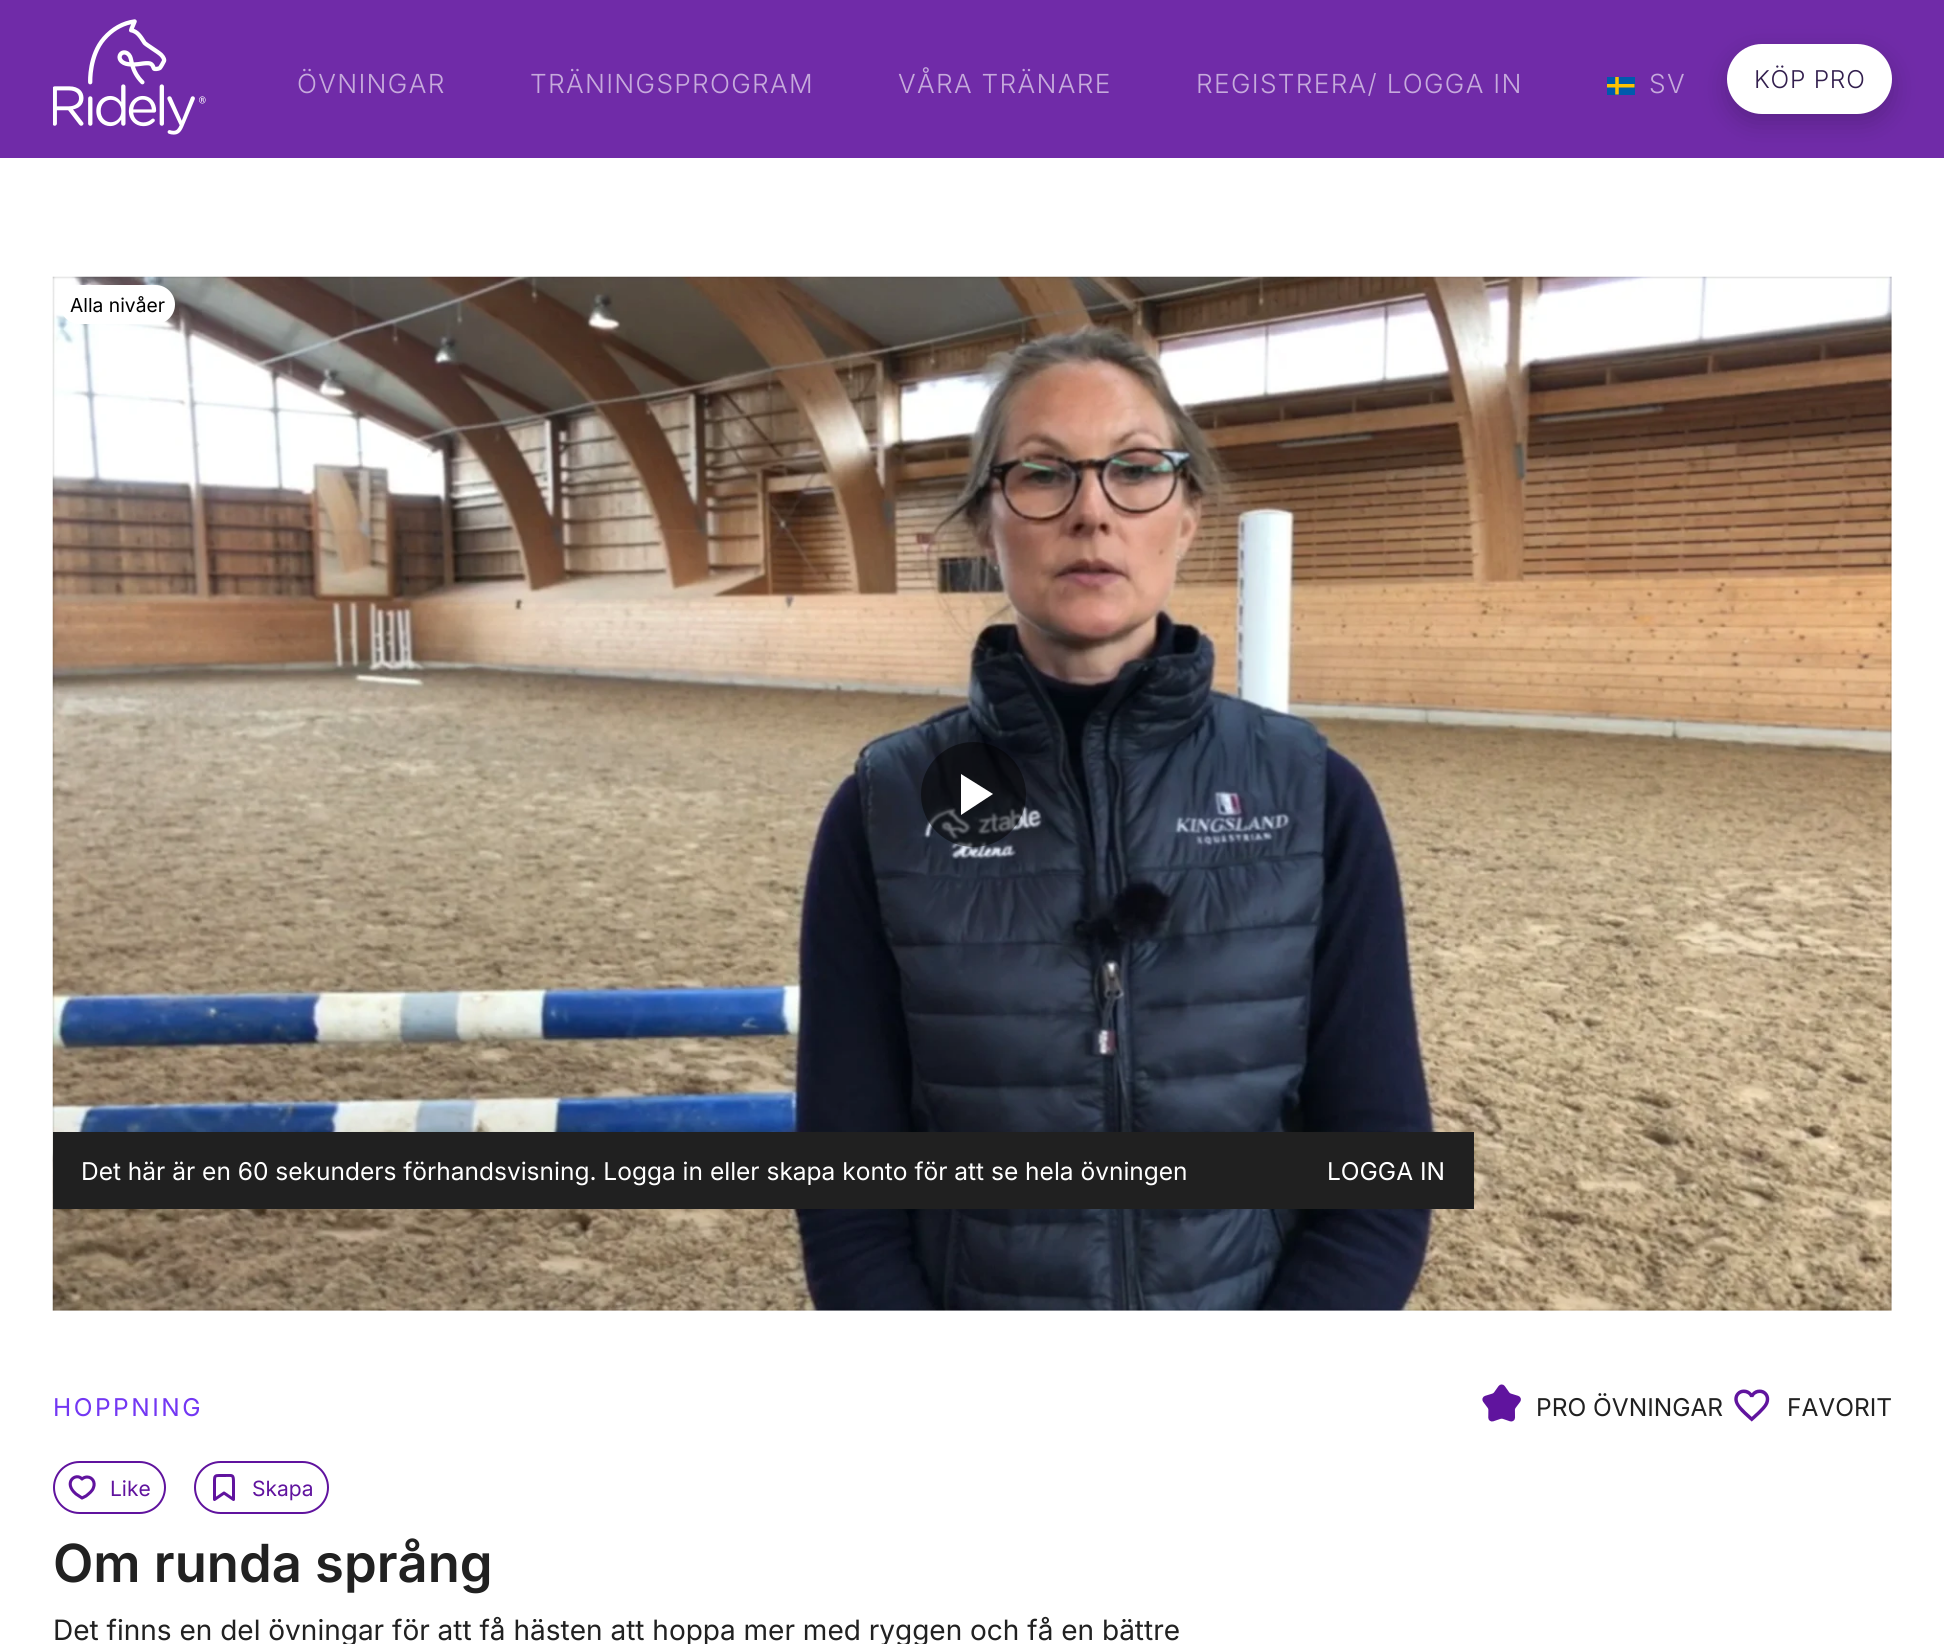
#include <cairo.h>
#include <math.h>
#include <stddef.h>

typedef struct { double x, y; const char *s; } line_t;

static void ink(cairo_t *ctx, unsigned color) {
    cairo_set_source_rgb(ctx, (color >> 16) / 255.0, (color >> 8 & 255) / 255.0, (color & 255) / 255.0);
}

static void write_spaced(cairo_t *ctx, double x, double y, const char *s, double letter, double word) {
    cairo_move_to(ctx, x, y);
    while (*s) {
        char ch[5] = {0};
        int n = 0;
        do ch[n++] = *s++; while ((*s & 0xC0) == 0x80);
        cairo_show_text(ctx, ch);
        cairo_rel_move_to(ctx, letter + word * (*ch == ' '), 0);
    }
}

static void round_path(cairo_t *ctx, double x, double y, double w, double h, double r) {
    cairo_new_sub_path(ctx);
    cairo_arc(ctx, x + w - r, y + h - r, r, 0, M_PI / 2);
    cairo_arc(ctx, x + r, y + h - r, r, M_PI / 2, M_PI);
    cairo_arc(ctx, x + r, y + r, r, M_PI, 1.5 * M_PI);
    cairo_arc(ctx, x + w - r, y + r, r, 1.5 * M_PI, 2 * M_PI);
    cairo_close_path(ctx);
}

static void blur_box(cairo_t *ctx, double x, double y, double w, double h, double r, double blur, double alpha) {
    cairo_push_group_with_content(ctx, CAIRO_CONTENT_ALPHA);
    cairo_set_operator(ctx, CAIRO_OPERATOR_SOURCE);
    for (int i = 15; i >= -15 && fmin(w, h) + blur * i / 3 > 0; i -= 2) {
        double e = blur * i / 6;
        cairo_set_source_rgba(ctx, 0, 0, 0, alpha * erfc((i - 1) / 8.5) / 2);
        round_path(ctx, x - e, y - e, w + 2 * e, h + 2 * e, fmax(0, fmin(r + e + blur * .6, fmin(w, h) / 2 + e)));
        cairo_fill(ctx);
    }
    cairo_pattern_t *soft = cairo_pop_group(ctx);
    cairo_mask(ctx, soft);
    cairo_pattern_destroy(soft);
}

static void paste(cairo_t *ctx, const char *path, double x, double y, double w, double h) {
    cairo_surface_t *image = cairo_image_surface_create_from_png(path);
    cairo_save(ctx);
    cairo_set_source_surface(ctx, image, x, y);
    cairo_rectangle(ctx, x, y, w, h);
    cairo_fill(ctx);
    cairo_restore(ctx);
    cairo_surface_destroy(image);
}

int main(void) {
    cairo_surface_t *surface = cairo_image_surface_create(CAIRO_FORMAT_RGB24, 1944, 1644);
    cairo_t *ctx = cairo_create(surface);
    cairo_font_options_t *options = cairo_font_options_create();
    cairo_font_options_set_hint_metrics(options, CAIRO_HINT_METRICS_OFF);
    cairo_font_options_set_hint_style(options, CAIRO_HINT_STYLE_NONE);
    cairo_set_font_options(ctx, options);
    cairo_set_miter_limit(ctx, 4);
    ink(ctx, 0xFFFFFF);
    cairo_paint(ctx);
    ink(ctx, 0x702BA8);
    cairo_rectangle(ctx, 0, 0, 1944, 158);
    cairo_fill(ctx);
    paste(ctx, "media/1.png", 53, 19, 153, 116);
    cairo_select_font_face(ctx, "Inter Light", CAIRO_FONT_SLANT_NORMAL, CAIRO_FONT_WEIGHT_NORMAL);
    cairo_set_font_size(ctx, 26.25);
    ink(ctx, 0xC6AADC);
    {
        static const line_t items[] = {
            {297, 93, "ÖVNINGAR"},
            {530, 93, "TRÄNINGSPROGRAM"},
            {898, 93, "VÅRA TRÄNARE"},
            {1196, 93, "REGISTRERA/ LOGGA IN"},
        };
        for (size_t i = 0; i < sizeof items / sizeof *items; i++) {
            write_spaced(ctx, items[i].x, items[i].y, items[i].s, 1.3, 0);
        }
    }
    paste(ctx, "media/2.png", 1607, 77, 28, 18);
    write_spaced(ctx, 1649, 93, "SV", 1.3, 0);
    ink(ctx, 0x000000);
    blur_box(ctx, 1727, 53, 165, 70, 35, 13, 0.2);
    ink(ctx, 0xFFFFFF);
    round_path(ctx, 1727, 44, 165, 70, 35);
    cairo_fill(ctx);
    cairo_set_font_size(ctx, 24.5);
    ink(ctx, 0x331F4E);
    write_spaced(ctx, 1754, 88, "KÖP PRO", 0.75, 0);
    paste(ctx, "media/3.png", 52, 276, 1840, 1035);
    cairo_set_source_rgba(ctx, 0, 0, 0, 0.5);
    cairo_arc(ctx, 973.5, 794.5, 52.5, 0, 2 * M_PI);
    cairo_fill(ctx);
    ink(ctx, 0xFFFFFF);
    cairo_new_path(ctx);
    cairo_move_to(ctx, 961, 774);
    cairo_line_to(ctx, 993, 794);
    cairo_line_to(ctx, 961, 815);
    cairo_close_path(ctx);
    cairo_fill(ctx);
    round_path(ctx, 60, 285, 115, 39, 19.5);
    cairo_fill(ctx);
    cairo_select_font_face(ctx, "Inter", CAIRO_FONT_SLANT_NORMAL, CAIRO_FONT_WEIGHT_NORMAL);
    cairo_set_font_size(ctx, 19.25);
    ink(ctx, 0x000000);
    cairo_move_to(ctx, 70, 312);
    cairo_show_text(ctx, "Alla nivåer");
    ink(ctx, 0x202020);
    cairo_rectangle(ctx, 53, 1132, 1421, 77);
    cairo_fill(ctx);
    cairo_set_font_size(ctx, 24.5);
    ink(ctx, 0xFFFFFF);
    cairo_move_to(ctx, 81, 1180);
    cairo_show_text(ctx, "Det här är en 60 sekunders förhandsvisning. Logga in eller skapa konto för att se hela övningen");
    cairo_move_to(ctx, 1327, 1180);
    cairo_show_text(ctx, "LOGGA IN");
    ink(ctx, 0x7337F3);
    write_spaced(ctx, 53, 1416, "HOPPNING", 2.5, 0);
    paste(ctx, "media/4.png", 1482, 1384, 39, 38);
    ink(ctx, 0x212121);
    cairo_move_to(ctx, 1536, 1416);
    cairo_show_text(ctx, "PRO ÖVNINGAR");
    paste(ctx, "media/5.png", 1734, 1389, 36, 33);
    cairo_move_to(ctx, 1787, 1416);
    cairo_show_text(ctx, "FAVORIT");
    round_path(ctx, 54, 1462, 111, 51, 25.5);
    ink(ctx, 0x60139E);
    cairo_stroke(ctx);
    cairo_new_path(ctx);
    cairo_move_to(ctx, 87, 1477);
    cairo_curve_to(ctx, 92.5, 1477, 95.5, 1482.5, 93.5, 1487.5);
    cairo_curve_to(ctx, 92.5, 1491, 89, 1493.5, 86, 1496);
    cairo_line_to(ctx, 82, 1498);
    cairo_line_to(ctx, 76, 1494);
    cairo_curve_to(ctx, 62.5, 1482.5, 76, 1472, 82, 1479);
    cairo_curve_to(ctx, 83, 1478, 85, 1477, 87, 1477);
    cairo_close_path(ctx);
    cairo_set_line_width(ctx, 3.1);
    cairo_set_line_cap(ctx, CAIRO_LINE_CAP_ROUND);
    cairo_set_line_join(ctx, CAIRO_LINE_JOIN_ROUND);
    cairo_stroke(ctx);
    cairo_set_font_size(ctx, 21);
    cairo_move_to(ctx, 110, 1496);
    cairo_show_text(ctx, "Like");
    round_path(ctx, 195, 1462, 133, 51, 25.5);
    cairo_set_line_width(ctx, 2);
    cairo_set_line_cap(ctx, CAIRO_LINE_CAP_BUTT);
    cairo_set_line_join(ctx, CAIRO_LINE_JOIN_MITER);
    cairo_stroke(ctx);
    cairo_save(ctx);
    cairo_rectangle(ctx, 210, 1474, 28, 28);
    cairo_clip(ctx);
    cairo_new_path(ctx);
    cairo_move_to(ctx, 214.5, 1480);
    cairo_curve_to(ctx, 214.5, 1476, 215.5, 1475.5, 219, 1475.5);
    cairo_line_to(ctx, 224, 1475.5);
    cairo_curve_to(ctx, 233, 1475.5, 233.5, 1474, 233.5, 1483);
    cairo_line_to(ctx, 233.5, 1499.5);
    cairo_line_to(ctx, 224, 1493);
    cairo_line_to(ctx, 214.5, 1499.5);
    cairo_close_path(ctx);
    cairo_set_line_width(ctx, 3);
    cairo_set_line_join(ctx, CAIRO_LINE_JOIN_ROUND);
    cairo_stroke(ctx);
    cairo_restore(ctx);
    cairo_move_to(ctx, 252, 1496);
    cairo_show_text(ctx, "Skapa");
    cairo_select_font_face(ctx, "Inter SemiBold", CAIRO_FONT_SLANT_NORMAL, CAIRO_FONT_WEIGHT_NORMAL);
    cairo_set_font_size(ctx, 52.5);
    ink(ctx, 0x212121);
    cairo_move_to(ctx, 53, 1582);
    cairo_show_text(ctx, "Om runda språng");
    cairo_select_font_face(ctx, "Inter", CAIRO_FONT_SLANT_NORMAL, CAIRO_FONT_WEIGHT_NORMAL);
    cairo_set_font_size(ctx, 28);
    cairo_move_to(ctx, 53, 1640);
    cairo_show_text(ctx, "Det finns en del övningar för att få hästen att hoppa mer med ryggen och få en bättre");
    cairo_surface_write_to_png(surface, "image.png");
    cairo_font_options_destroy(options);
    cairo_destroy(ctx);
    cairo_surface_destroy(surface);
    return 0;
}
